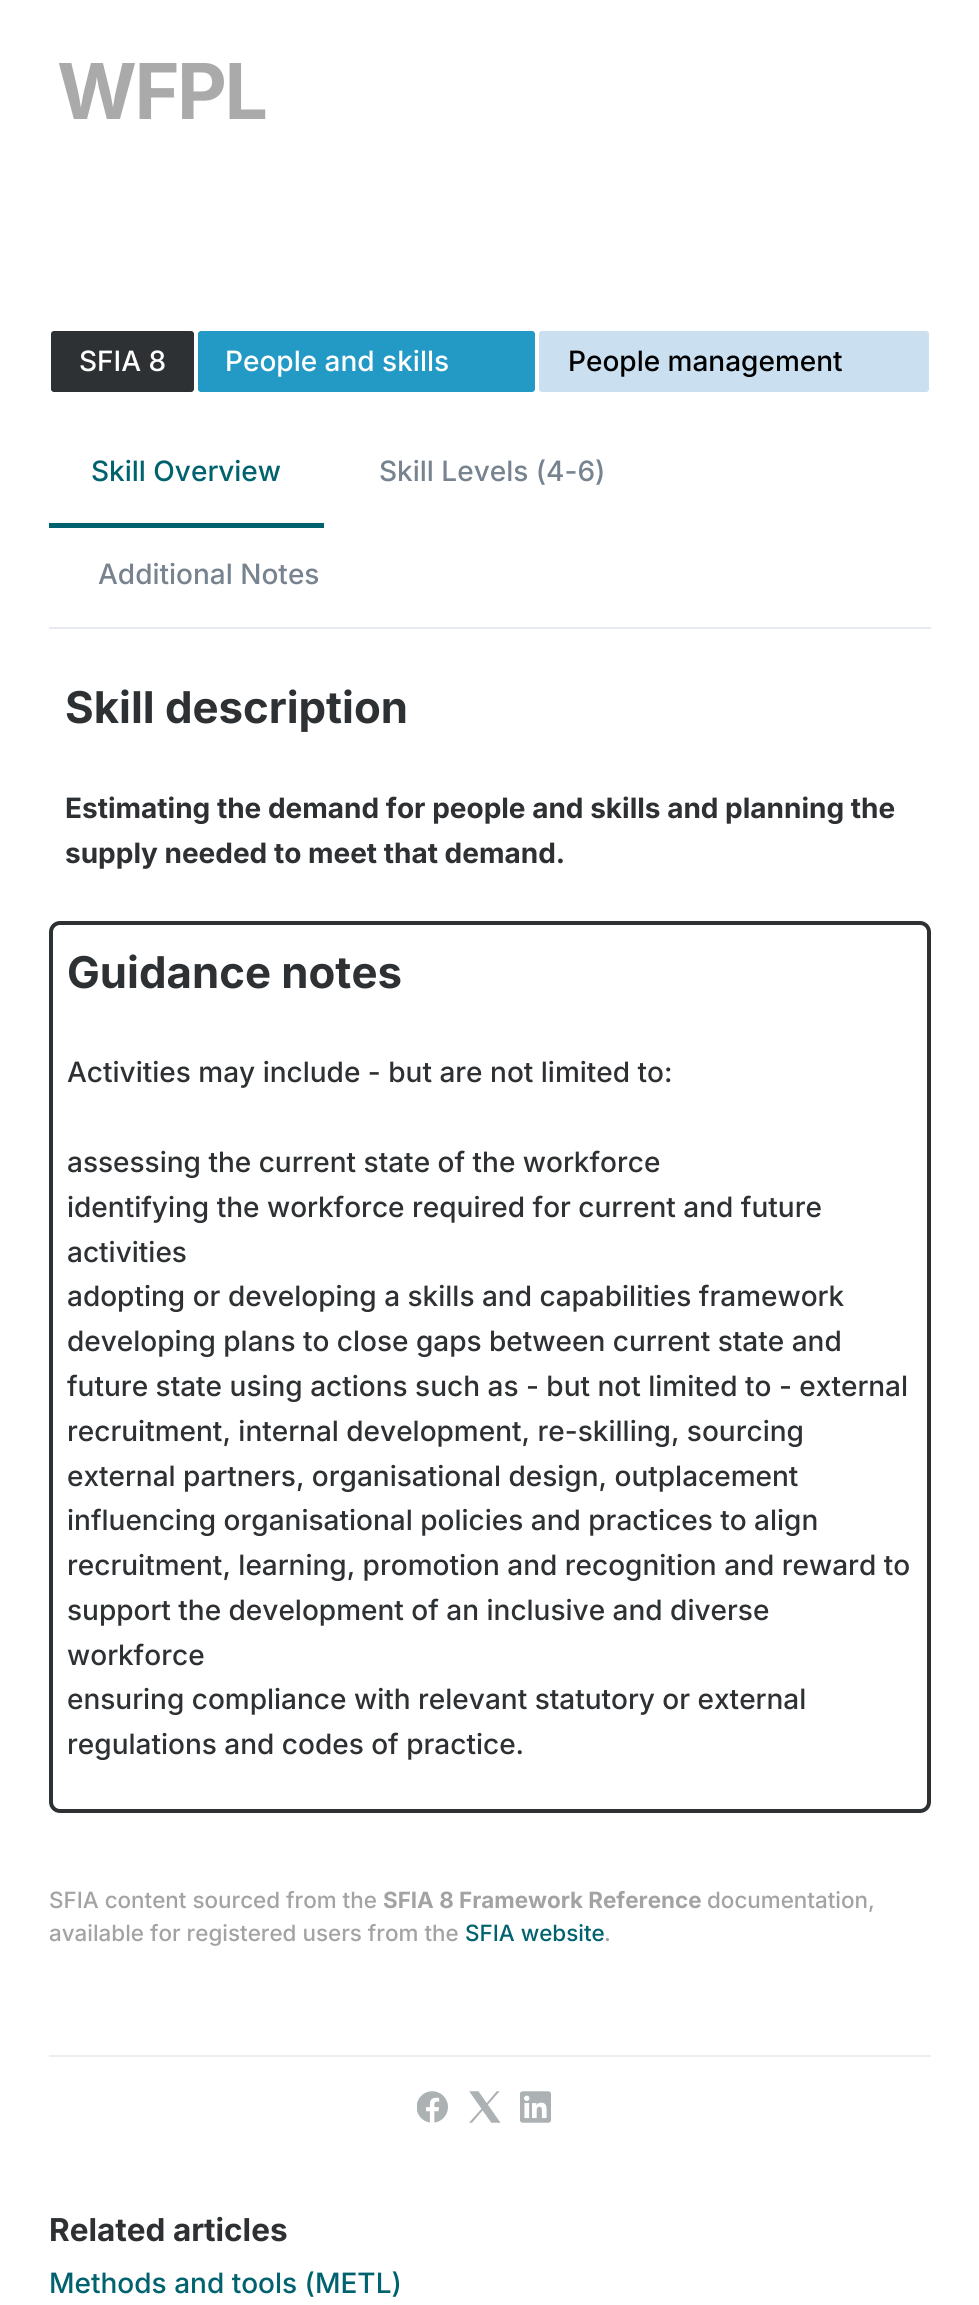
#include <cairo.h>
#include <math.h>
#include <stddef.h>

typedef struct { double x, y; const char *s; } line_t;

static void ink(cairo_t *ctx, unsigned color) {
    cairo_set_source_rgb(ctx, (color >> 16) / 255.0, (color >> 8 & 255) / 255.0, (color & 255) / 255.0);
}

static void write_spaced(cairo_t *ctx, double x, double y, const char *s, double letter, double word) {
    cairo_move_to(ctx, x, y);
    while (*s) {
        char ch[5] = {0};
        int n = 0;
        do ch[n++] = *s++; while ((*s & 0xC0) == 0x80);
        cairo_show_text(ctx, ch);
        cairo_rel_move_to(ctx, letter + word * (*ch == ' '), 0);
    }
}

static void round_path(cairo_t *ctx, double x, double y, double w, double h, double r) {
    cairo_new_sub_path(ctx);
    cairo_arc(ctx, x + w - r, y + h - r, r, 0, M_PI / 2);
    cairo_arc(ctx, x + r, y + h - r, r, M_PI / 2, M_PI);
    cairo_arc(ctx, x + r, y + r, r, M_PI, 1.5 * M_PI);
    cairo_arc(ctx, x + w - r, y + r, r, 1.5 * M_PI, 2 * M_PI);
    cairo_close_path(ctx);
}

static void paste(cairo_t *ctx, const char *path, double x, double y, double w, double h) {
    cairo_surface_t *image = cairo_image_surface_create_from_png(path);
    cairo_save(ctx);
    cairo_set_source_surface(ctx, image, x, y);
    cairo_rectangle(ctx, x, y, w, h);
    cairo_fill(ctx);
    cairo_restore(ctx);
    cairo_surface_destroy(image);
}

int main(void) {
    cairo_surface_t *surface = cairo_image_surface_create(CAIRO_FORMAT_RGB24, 979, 2305);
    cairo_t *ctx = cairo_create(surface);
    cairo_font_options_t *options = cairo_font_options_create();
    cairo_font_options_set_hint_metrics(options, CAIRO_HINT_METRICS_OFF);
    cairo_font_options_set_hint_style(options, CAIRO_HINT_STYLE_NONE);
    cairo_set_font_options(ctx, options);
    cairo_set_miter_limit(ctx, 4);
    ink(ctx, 0xFFFFFF);
    cairo_paint(ctx);
    cairo_select_font_face(ctx, "Inter", CAIRO_FONT_SLANT_NORMAL, CAIRO_FONT_WEIGHT_BOLD);
    cairo_set_font_size(ctx, 77);
    ink(ctx, 0xAAAAAA);
    write_spaced(ctx, 57, 119, "WFPL", -2.5, 0);
    ink(ctx, 0x2E3133);
    round_path(ctx, 50, 330, 145, 63, 4);
    cairo_fill_preserve(ctx);
    ink(ctx, 0xFFFFFF);
    cairo_stroke(ctx);
    cairo_select_font_face(ctx, "Inter Medium", CAIRO_FONT_SLANT_NORMAL, CAIRO_FONT_WEIGHT_NORMAL);
    cairo_set_font_size(ctx, 28);
    cairo_move_to(ctx, 79, 371);
    cairo_show_text(ctx, "SFIA 8");
    ink(ctx, 0x239AC5);
    round_path(ctx, 197, 330, 339, 63, 4);
    cairo_fill_preserve(ctx);
    ink(ctx, 0xFFFFFF);
    cairo_stroke(ctx);
    cairo_move_to(ctx, 225, 371);
    cairo_show_text(ctx, "People and skills");
    ink(ctx, 0xCADFEF);
    round_path(ctx, 538, 330, 392, 63, 4);
    cairo_fill_preserve(ctx);
    ink(ctx, 0xFFFFFF);
    cairo_stroke(ctx);
    ink(ctx, 0x000000);
    cairo_move_to(ctx, 568, 371);
    cairo_show_text(ctx, "People management");
    ink(ctx, 0xE7EAF3);
    cairo_rectangle(ctx, 49, 627, 882, 2);
    cairo_fill(ctx);
    ink(ctx, 0x00626E);
    cairo_rectangle(ctx, 49, 523, 275, 5);
    cairo_fill(ctx);
    cairo_move_to(ctx, 91, 481);
    cairo_show_text(ctx, "Skill Overview");
    ink(ctx, 0x77838F);
    cairo_move_to(ctx, 379, 481);
    cairo_show_text(ctx, "Skill Levels (4-6)");
    cairo_move_to(ctx, 98, 584);
    cairo_show_text(ctx, "Additional Notes");
    cairo_select_font_face(ctx, "Inter", CAIRO_FONT_SLANT_NORMAL, CAIRO_FONT_WEIGHT_BOLD);
    cairo_set_font_size(ctx, 43.75);
    ink(ctx, 0x2E3133);
    cairo_move_to(ctx, 65, 723);
    cairo_show_text(ctx, "Skill description");
    cairo_set_font_size(ctx, 28);
    cairo_move_to(ctx, 65, 818);
    cairo_show_text(ctx, "Estimating the demand for people and skills and planning the");
    cairo_move_to(ctx, 65, 863);
    cairo_show_text(ctx, "supply needed to meet that demand.");
    round_path(ctx, 51, 923, 878, 888, 9);
    cairo_set_line_width(ctx, 4);
    cairo_stroke(ctx);
    cairo_set_font_size(ctx, 43.75);
    cairo_move_to(ctx, 67, 988);
    cairo_show_text(ctx, "Guidance notes");
    cairo_select_font_face(ctx, "Inter Medium", CAIRO_FONT_SLANT_NORMAL, CAIRO_FONT_WEIGHT_NORMAL);
    cairo_set_font_size(ctx, 28);
    {
        static const line_t items[] = {
            {67, 1082, "Activities may include - but are not limited to:"},
            {67, 1172, "assessing the current state of the workforce"},
            {67, 1217, "identifying the workforce required for current and future"},
            {67, 1262, "activities"},
            {67, 1306, "adopting or developing a skills and capabilities framework"},
            {67, 1351, "developing plans to close gaps between current state and"},
            {67, 1396, "future state using actions such as - but not limited to - external"},
            {67, 1441, "recruitment, internal development, re-skilling, sourcing"},
            {67, 1486, "external partners, organisational design, outplacement"},
            {67, 1530, "influencing organisational policies and practices to align"},
            {67, 1575, "recruitment, learning, promotion and recognition and reward to"},
            {67, 1620, "support the development of an inclusive and diverse"},
            {67, 1665, "workforce"},
            {67, 1709, "ensuring compliance with relevant statutory or external"},
            {67, 1754, "regulations and codes of practice."},
        };
        for (size_t i = 0; i < sizeof items / sizeof *items; i++) {
            cairo_move_to(ctx, items[i].x, items[i].y);
            cairo_show_text(ctx, items[i].s);
        }
    }
    cairo_set_font_size(ctx, 22.4);
    ink(ctx, 0xA3A3A3);
    cairo_move_to(ctx, 49, 1908);
    cairo_show_text(ctx, "SFIA content sourced from the");
    cairo_select_font_face(ctx, "Inter", CAIRO_FONT_SLANT_NORMAL, CAIRO_FONT_WEIGHT_BOLD);
    cairo_move_to(ctx, 383, 1908);
    cairo_show_text(ctx, "SFIA 8 Framework Reference");
    cairo_select_font_face(ctx, "Inter Medium", CAIRO_FONT_SLANT_NORMAL, CAIRO_FONT_WEIGHT_NORMAL);
    cairo_move_to(ctx, 707, 1908);
    cairo_show_text(ctx, "documentation,");
    cairo_move_to(ctx, 49, 1941);
    cairo_show_text(ctx, "available for registered users from the");
    ink(ctx, 0x00626E);
    cairo_move_to(ctx, 465, 1941);
    cairo_show_text(ctx, "SFIA website");
    ink(ctx, 0xA3A3A3);
    cairo_move_to(ctx, 604, 1941);
    cairo_show_text(ctx, ".");
    ink(ctx, 0xEEEEEE);
    cairo_rectangle(ctx, 49, 2055, 882, 2);
    cairo_fill(ctx);
    paste(ctx, "media/1.png", 417, 2091, 31, 32);
    paste(ctx, "media/2.png", 469, 2091, 32, 32);
    paste(ctx, "media/3.png", 520, 2091, 31, 32);
    cairo_select_font_face(ctx, "Inter", CAIRO_FONT_SLANT_NORMAL, CAIRO_FONT_WEIGHT_BOLD);
    cairo_set_font_size(ctx, 31.5);
    ink(ctx, 0x2E3133);
    cairo_move_to(ctx, 49, 2241);
    cairo_show_text(ctx, "Related articles");
    cairo_select_font_face(ctx, "Inter Medium", CAIRO_FONT_SLANT_NORMAL, CAIRO_FONT_WEIGHT_NORMAL);
    cairo_set_font_size(ctx, 28);
    ink(ctx, 0x00626E);
    cairo_move_to(ctx, 49, 2293);
    cairo_show_text(ctx, "Methods and tools (METL)");
    cairo_surface_write_to_png(surface, "image.png");
    cairo_font_options_destroy(options);
    cairo_destroy(ctx);
    cairo_surface_destroy(surface);
    return 0;
}
